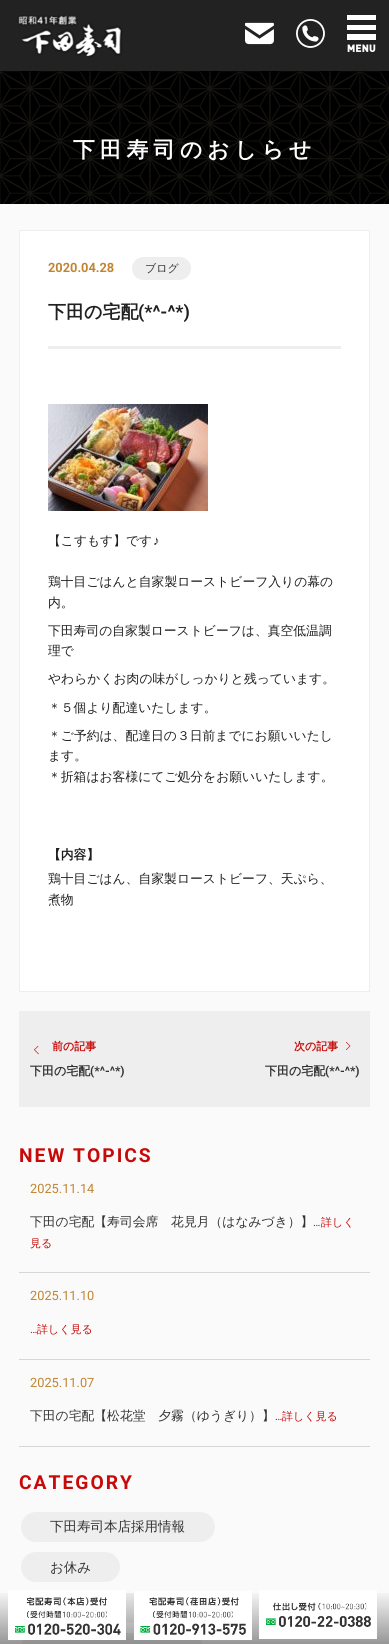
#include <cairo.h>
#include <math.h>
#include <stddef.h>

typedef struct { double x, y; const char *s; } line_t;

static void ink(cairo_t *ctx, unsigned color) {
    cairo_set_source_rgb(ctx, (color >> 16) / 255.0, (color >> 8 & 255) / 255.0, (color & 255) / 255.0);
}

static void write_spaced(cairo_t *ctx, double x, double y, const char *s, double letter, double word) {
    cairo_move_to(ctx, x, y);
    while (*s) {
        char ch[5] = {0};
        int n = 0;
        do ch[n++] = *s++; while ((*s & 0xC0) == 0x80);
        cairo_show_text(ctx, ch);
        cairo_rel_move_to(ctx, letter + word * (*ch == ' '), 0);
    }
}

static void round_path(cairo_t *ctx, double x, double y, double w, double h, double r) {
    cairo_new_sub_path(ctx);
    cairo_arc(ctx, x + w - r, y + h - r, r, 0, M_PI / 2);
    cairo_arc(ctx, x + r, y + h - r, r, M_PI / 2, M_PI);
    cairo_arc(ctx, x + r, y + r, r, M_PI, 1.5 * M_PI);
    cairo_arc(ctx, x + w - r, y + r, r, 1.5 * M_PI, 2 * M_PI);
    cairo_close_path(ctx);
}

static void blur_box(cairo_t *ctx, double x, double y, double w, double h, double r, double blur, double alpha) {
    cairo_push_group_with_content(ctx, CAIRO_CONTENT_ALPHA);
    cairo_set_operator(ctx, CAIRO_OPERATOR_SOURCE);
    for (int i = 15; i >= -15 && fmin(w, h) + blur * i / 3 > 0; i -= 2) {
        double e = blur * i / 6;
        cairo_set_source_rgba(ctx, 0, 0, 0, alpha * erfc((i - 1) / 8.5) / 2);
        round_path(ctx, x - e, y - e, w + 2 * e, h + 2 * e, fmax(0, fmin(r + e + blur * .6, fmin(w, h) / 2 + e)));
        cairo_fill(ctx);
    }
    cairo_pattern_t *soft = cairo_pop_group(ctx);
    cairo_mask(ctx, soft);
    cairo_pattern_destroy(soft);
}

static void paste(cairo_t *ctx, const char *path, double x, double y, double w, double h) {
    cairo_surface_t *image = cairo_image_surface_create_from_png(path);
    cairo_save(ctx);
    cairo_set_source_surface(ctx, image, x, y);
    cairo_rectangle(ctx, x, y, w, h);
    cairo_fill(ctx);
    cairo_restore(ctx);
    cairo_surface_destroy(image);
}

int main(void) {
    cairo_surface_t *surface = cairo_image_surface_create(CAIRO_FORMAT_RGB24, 389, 1644);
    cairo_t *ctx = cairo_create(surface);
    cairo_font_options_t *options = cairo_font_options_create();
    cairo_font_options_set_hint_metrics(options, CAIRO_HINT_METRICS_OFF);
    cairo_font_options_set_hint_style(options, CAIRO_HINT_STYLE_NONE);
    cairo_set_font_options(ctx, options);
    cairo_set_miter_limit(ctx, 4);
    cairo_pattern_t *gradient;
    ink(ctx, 0xFFFFFF);
    cairo_paint(ctx);
    paste(ctx, "media/5.png", 0, 71, 389, 133);
    ink(ctx, 0x000000);
    blur_box(ctx, 2, 8, 385, 67, 0, 1, 0.23);
    ink(ctx, 0x222222);
    cairo_rectangle(ctx, 0, 0, 389, 71);
    cairo_fill(ctx);
    paste(ctx, "media/1.png", 17, 15, 106, 43);
    paste(ctx, "media/2.png", 245, 22, 29, 23);
    paste(ctx, "media/3.png", 296, 19, 29, 29);
    paste(ctx, "media/4.png", 347, 15, 29, 37);
    cairo_select_font_face(ctx, "WenQuanYi Zen Hei", CAIRO_FONT_SLANT_NORMAL, CAIRO_FONT_WEIGHT_BOLD);
    cairo_set_font_size(ctx, 21.75);
    ink(ctx, 0xFFFFFF);
    write_spaced(ctx, 73, 157, "下田寿司のおしらせ", 5, 0);
    ink(ctx, 0xFAFAFA);
    cairo_rectangle(ctx, 0, 204, 389, 1440);
    cairo_fill(ctx);
    ink(ctx, 0xFFFFFF);
    cairo_rectangle(ctx, 19.5, 230.5, 350, 761);
    cairo_fill_preserve(ctx);
    ink(ctx, 0xEEEEEE);
    cairo_set_line_width(ctx, 1);
    cairo_stroke(ctx);
    cairo_select_font_face(ctx, "Roboto", CAIRO_FONT_SLANT_NORMAL, CAIRO_FONT_WEIGHT_BOLD);
    cairo_set_font_size(ctx, 12.8);
    ink(ctx, 0xC18532);
    cairo_move_to(ctx, 48, 272);
    cairo_show_text(ctx, "2020.04.28");
    ink(ctx, 0xEEEEEE);
    round_path(ctx, 133, 258, 57, 21, 10.5);
    cairo_fill_preserve(ctx);
    cairo_set_line_width(ctx, 2);
    cairo_stroke(ctx);
    cairo_select_font_face(ctx, "WenQuanYi Zen Hei Medium", CAIRO_FONT_SLANT_NORMAL, CAIRO_FONT_WEIGHT_NORMAL);
    cairo_set_font_size(ctx, 11);
    ink(ctx, 0x333333);
    cairo_move_to(ctx, 145, 272);
    cairo_show_text(ctx, "ブログ");
    cairo_select_font_face(ctx, "WenQuanYi Zen Hei", CAIRO_FONT_SLANT_NORMAL, CAIRO_FONT_WEIGHT_BOLD);
    cairo_set_font_size(ctx, 18);
    ink(ctx, 0x202020);
    cairo_move_to(ctx, 48, 318);
    cairo_show_text(ctx, "下田の宅配");
    cairo_select_font_face(ctx, "Roboto", CAIRO_FONT_SLANT_NORMAL, CAIRO_FONT_WEIGHT_BOLD);
    cairo_move_to(ctx, 138, 318);
    cairo_show_text(ctx, "(*^-^*)");
    ink(ctx, 0xEEEEEE);
    cairo_rectangle(ctx, 48, 346, 293, 3);
    cairo_fill(ctx);
    paste(ctx, "media/6.png", 48, 404, 160, 107);
    cairo_select_font_face(ctx, "WenQuanYi Zen Hei Medium", CAIRO_FONT_SLANT_NORMAL, CAIRO_FONT_WEIGHT_NORMAL);
    cairo_set_font_size(ctx, 12.8);
    ink(ctx, 0x202020);
    cairo_move_to(ctx, 48, 545);
    cairo_show_text(ctx, "【こすもす】です");
    cairo_select_font_face(ctx, "Liberation Sans", CAIRO_FONT_SLANT_NORMAL, CAIRO_FONT_WEIGHT_NORMAL);
    cairo_move_to(ctx, 153, 545);
    cairo_show_text(ctx, "♪");
    cairo_select_font_face(ctx, "WenQuanYi Zen Hei Medium", CAIRO_FONT_SLANT_NORMAL, CAIRO_FONT_WEIGHT_NORMAL);
    {
        static const line_t items[] = {
            {48, 586, "鶏十目ごはんと自家製ローストビーフ入りの幕の"},
            {48, 607, "内。"},
            {48, 635, "下田寿司の自家製ローストビーフは、真空低温調"},
            {48, 655, "理で"},
            {48, 683, "やわらかくお肉の味がしっかりと残っています。"},
            {48, 712, "＊５個より配達いたします。"},
            {48, 740, "＊ご予約は、配達日の３日前までにお願いいたし"},
            {48, 760, "ます。"},
            {48, 781, "＊折箱はお客様にてご処分をお願いいたします。"},
        };
        for (size_t i = 0; i < sizeof items / sizeof *items; i++) {
            cairo_move_to(ctx, items[i].x, items[i].y);
            cairo_show_text(ctx, items[i].s);
        }
    }
    cairo_select_font_face(ctx, "WenQuanYi Zen Hei", CAIRO_FONT_SLANT_NORMAL, CAIRO_FONT_WEIGHT_BOLD);
    cairo_move_to(ctx, 48, 859);
    cairo_show_text(ctx, "【内容】");
    cairo_select_font_face(ctx, "WenQuanYi Zen Hei Medium", CAIRO_FONT_SLANT_NORMAL, CAIRO_FONT_WEIGHT_NORMAL);
    cairo_move_to(ctx, 48, 883);
    cairo_show_text(ctx, "鶏十目ごはん、自家製ローストビーフ、天ぷら、");
    cairo_move_to(ctx, 48, 904);
    cairo_show_text(ctx, "煮物");
    ink(ctx, 0xEEEEEE);
    cairo_rectangle(ctx, 19, 1011, 351, 96);
    cairo_fill(ctx);
    paste(ctx, "media/7.png", 34, 1046, 5, 9);
    cairo_select_font_face(ctx, "WenQuanYi Zen Hei", CAIRO_FONT_SLANT_NORMAL, CAIRO_FONT_WEIGHT_BOLD);
    cairo_set_font_size(ctx, 11);
    ink(ctx, 0xC70A08);
    cairo_move_to(ctx, 52, 1050);
    cairo_show_text(ctx, "前の記事");
    cairo_set_font_size(ctx, 12);
    ink(ctx, 0x333333);
    cairo_move_to(ctx, 30, 1075);
    cairo_show_text(ctx, "下田の宅配");
    cairo_select_font_face(ctx, "Roboto", CAIRO_FONT_SLANT_NORMAL, CAIRO_FONT_WEIGHT_BOLD);
    cairo_move_to(ctx, 90, 1075);
    cairo_show_text(ctx, "(*^-^*)");
    cairo_select_font_face(ctx, "WenQuanYi Zen Hei", CAIRO_FONT_SLANT_NORMAL, CAIRO_FONT_WEIGHT_BOLD);
    cairo_set_font_size(ctx, 11);
    ink(ctx, 0xC70A08);
    cairo_move_to(ctx, 294, 1050);
    cairo_show_text(ctx, "次の記事");
    paste(ctx, "media/8.png", 346, 1042, 5, 8);
    cairo_set_font_size(ctx, 12);
    ink(ctx, 0x333333);
    cairo_move_to(ctx, 265, 1075);
    cairo_show_text(ctx, "下田の宅配");
    cairo_select_font_face(ctx, "Roboto", CAIRO_FONT_SLANT_NORMAL, CAIRO_FONT_WEIGHT_BOLD);
    cairo_move_to(ctx, 325, 1075);
    cairo_show_text(ctx, "(*^-^*)");
    cairo_set_font_size(ctx, 19.25);
    ink(ctx, 0xC70A08);
    write_spaced(ctx, 19, 1162, "NEW TOPICS", 2, 0);
    ink(ctx, 0xD6D6D6);
    cairo_rectangle(ctx, 19, 1272, 351, 1);
    cairo_fill(ctx);
    cairo_select_font_face(ctx, "Roboto", CAIRO_FONT_SLANT_NORMAL, CAIRO_FONT_WEIGHT_NORMAL);
    cairo_set_font_size(ctx, 12.8);
    ink(ctx, 0xC18532);
    cairo_move_to(ctx, 30, 1193);
    cairo_show_text(ctx, "2025.11.14");
    cairo_select_font_face(ctx, "WenQuanYi Zen Hei Medium", CAIRO_FONT_SLANT_NORMAL, CAIRO_FONT_WEIGHT_NORMAL);
    ink(ctx, 0x333333);
    cairo_move_to(ctx, 30, 1226);
    cairo_show_text(ctx, "下田の宅配【寿司会席　花見月（はなみづき）】");
    cairo_select_font_face(ctx, "Roboto", CAIRO_FONT_SLANT_NORMAL, CAIRO_FONT_WEIGHT_NORMAL);
    cairo_set_font_size(ctx, 11);
    ink(ctx, 0xC70A08);
    cairo_move_to(ctx, 313, 1226);
    cairo_show_text(ctx, "…");
    cairo_select_font_face(ctx, "WenQuanYi Zen Hei Medium", CAIRO_FONT_SLANT_NORMAL, CAIRO_FONT_WEIGHT_NORMAL);
    cairo_move_to(ctx, 321, 1226);
    cairo_show_text(ctx, "詳しく");
    cairo_move_to(ctx, 30, 1247);
    cairo_show_text(ctx, "見る");
    ink(ctx, 0xD6D6D6);
    cairo_rectangle(ctx, 19, 1359, 351, 1);
    cairo_fill(ctx);
    cairo_select_font_face(ctx, "Roboto", CAIRO_FONT_SLANT_NORMAL, CAIRO_FONT_WEIGHT_NORMAL);
    cairo_set_font_size(ctx, 12.8);
    ink(ctx, 0xC18532);
    cairo_move_to(ctx, 30, 1300);
    cairo_show_text(ctx, "2025.11.10");
    cairo_set_font_size(ctx, 11);
    ink(ctx, 0xC70A08);
    cairo_move_to(ctx, 30, 1333);
    cairo_show_text(ctx, "…");
    cairo_select_font_face(ctx, "WenQuanYi Zen Hei Medium", CAIRO_FONT_SLANT_NORMAL, CAIRO_FONT_WEIGHT_NORMAL);
    cairo_move_to(ctx, 37, 1333);
    cairo_show_text(ctx, "詳しく見る");
    ink(ctx, 0xD6D6D6);
    cairo_rectangle(ctx, 19, 1446, 351, 1);
    cairo_fill(ctx);
    cairo_select_font_face(ctx, "Roboto", CAIRO_FONT_SLANT_NORMAL, CAIRO_FONT_WEIGHT_NORMAL);
    cairo_set_font_size(ctx, 12.8);
    ink(ctx, 0xC18532);
    cairo_move_to(ctx, 30, 1387);
    cairo_show_text(ctx, "2025.11.07");
    cairo_select_font_face(ctx, "WenQuanYi Zen Hei Medium", CAIRO_FONT_SLANT_NORMAL, CAIRO_FONT_WEIGHT_NORMAL);
    ink(ctx, 0x333333);
    cairo_move_to(ctx, 30, 1420);
    cairo_show_text(ctx, "下田の宅配【松花堂　夕霧（ゆうぎり）】");
    cairo_select_font_face(ctx, "Roboto", CAIRO_FONT_SLANT_NORMAL, CAIRO_FONT_WEIGHT_NORMAL);
    cairo_set_font_size(ctx, 11);
    ink(ctx, 0xC70A08);
    cairo_move_to(ctx, 275, 1420);
    cairo_show_text(ctx, "…");
    cairo_select_font_face(ctx, "WenQuanYi Zen Hei Medium", CAIRO_FONT_SLANT_NORMAL, CAIRO_FONT_WEIGHT_NORMAL);
    cairo_move_to(ctx, 282, 1420);
    cairo_show_text(ctx, "詳しく見る");
    cairo_select_font_face(ctx, "Roboto", CAIRO_FONT_SLANT_NORMAL, CAIRO_FONT_WEIGHT_BOLD);
    cairo_set_font_size(ctx, 19.25);
    write_spaced(ctx, 19, 1489, "CATEGORY", 2, 0);
    ink(ctx, 0xEEEEEE);
    round_path(ctx, 22, 1513, 192, 28, 14);
    cairo_fill_preserve(ctx);
    cairo_stroke(ctx);
    cairo_select_font_face(ctx, "WenQuanYi Zen Hei Medium", CAIRO_FONT_SLANT_NORMAL, CAIRO_FONT_WEIGHT_NORMAL);
    cairo_set_font_size(ctx, 13.5);
    ink(ctx, 0x333333);
    cairo_move_to(ctx, 50, 1531);
    cairo_show_text(ctx, "下田寿司本店採用情報");
    ink(ctx, 0xEEEEEE);
    round_path(ctx, 22, 1553, 97, 28, 14);
    cairo_fill_preserve(ctx);
    cairo_stroke(ctx);
    ink(ctx, 0x333333);
    cairo_move_to(ctx, 50, 1572);
    cairo_show_text(ctx, "お休み");
    ink(ctx, 0xEEEEEE);
    cairo_rectangle(ctx, 126, 1595, 8, 26);
    cairo_fill(ctx);
    cairo_rectangle(ctx, 22, 1594, 164, 28);
    cairo_stroke(ctx);
    round_path(ctx, 22, 1634, 180, 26, 14);
    cairo_fill_preserve(ctx);
    cairo_stroke(ctx);
    gradient = cairo_pattern_create_linear(195, 1590, 195, 1644);
    cairo_pattern_add_color_stop_rgba(gradient, 0, 0, 0, 0, 0);
    cairo_pattern_add_color_stop_rgba(gradient, 1, 0, 0, 0, 0.4);
    cairo_set_source(ctx, gradient);
    cairo_pattern_destroy(gradient);
    cairo_rectangle(ctx, 0, 1593, 389, 51);
    cairo_fill(ctx);
    paste(ctx, "media/9.png", 8, 1590, 118, 50);
    paste(ctx, "media/10.png", 134, 1591, 118, 49);
    paste(ctx, "media/11.png", 259, 1590, 118, 49);
    cairo_surface_write_to_png(surface, "image.png");
    cairo_font_options_destroy(options);
    cairo_destroy(ctx);
    cairo_surface_destroy(surface);
    return 0;
}
